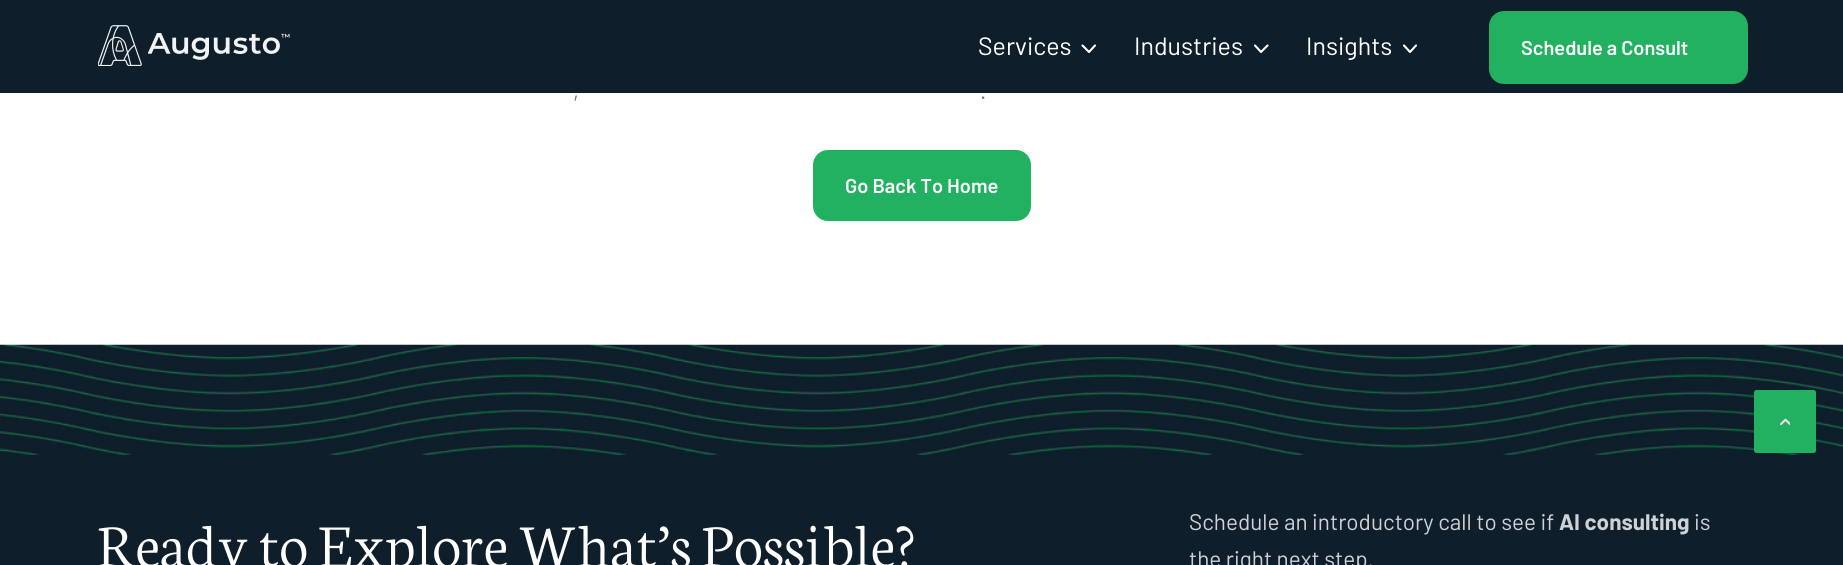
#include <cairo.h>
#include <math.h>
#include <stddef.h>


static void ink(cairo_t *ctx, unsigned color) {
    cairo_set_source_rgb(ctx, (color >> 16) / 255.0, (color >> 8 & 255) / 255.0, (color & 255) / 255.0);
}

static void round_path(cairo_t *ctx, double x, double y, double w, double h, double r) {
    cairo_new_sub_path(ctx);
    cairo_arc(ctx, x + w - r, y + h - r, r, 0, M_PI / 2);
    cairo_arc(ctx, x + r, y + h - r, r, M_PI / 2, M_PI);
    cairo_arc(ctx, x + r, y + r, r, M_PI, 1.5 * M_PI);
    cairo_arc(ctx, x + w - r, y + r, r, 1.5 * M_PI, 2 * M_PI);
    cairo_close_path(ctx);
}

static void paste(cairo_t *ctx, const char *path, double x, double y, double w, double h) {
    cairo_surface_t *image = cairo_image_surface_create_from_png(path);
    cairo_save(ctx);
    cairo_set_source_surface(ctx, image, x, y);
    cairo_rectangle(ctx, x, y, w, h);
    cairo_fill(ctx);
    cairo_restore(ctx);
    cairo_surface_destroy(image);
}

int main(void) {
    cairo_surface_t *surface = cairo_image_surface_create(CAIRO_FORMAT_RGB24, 1843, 565);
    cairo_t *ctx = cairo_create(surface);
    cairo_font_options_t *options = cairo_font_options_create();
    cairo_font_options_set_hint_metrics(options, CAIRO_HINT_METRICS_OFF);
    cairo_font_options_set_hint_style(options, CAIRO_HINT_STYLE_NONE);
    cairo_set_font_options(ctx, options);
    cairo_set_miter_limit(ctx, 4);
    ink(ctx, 0xFFFFFF);
    cairo_paint(ctx);
    ink(ctx, 0x0E1E2B);
    cairo_rectangle(ctx, 0, 0, 1843, 93);
    cairo_fill(ctx);
    paste(ctx, "media/1.png", 98, 25, 192, 41);
    cairo_select_font_face(ctx, "Barlow", CAIRO_FONT_SLANT_NORMAL, CAIRO_FONT_WEIGHT_NORMAL);
    cairo_set_font_size(ctx, 25);
    ink(ctx, 0xFFFFFF);
    cairo_move_to(ctx, 978, 55);
    cairo_show_text(ctx, "Services");
    cairo_new_path(ctx);
    cairo_move_to(ctx, 1082.5, 45.5);
    cairo_line_to(ctx, 1089, 52);
    cairo_line_to(ctx, 1095, 45.5);
    cairo_set_line_width(ctx, 2.1);
    cairo_set_line_cap(ctx, CAIRO_LINE_CAP_ROUND);
    cairo_set_line_join(ctx, CAIRO_LINE_JOIN_ROUND);
    cairo_stroke(ctx);
    cairo_move_to(ctx, 1134, 55);
    cairo_show_text(ctx, "Industries");
    cairo_new_path(ctx);
    cairo_move_to(ctx, 1255, 45.5);
    cairo_line_to(ctx, 1261, 52);
    cairo_line_to(ctx, 1267.5, 45.5);
    cairo_stroke(ctx);
    cairo_move_to(ctx, 1306, 55);
    cairo_show_text(ctx, "Insights");
    cairo_new_path(ctx);
    cairo_move_to(ctx, 1404, 45.5);
    cairo_line_to(ctx, 1410, 52);
    cairo_line_to(ctx, 1416, 45.5);
    cairo_stroke(ctx);
    ink(ctx, 0x22B160);
    round_path(ctx, 1490.5, 12.5, 256, 70, 13.5);
    cairo_fill_preserve(ctx);
    ink(ctx, 0x22B161);
    cairo_set_line_width(ctx, 3);
    cairo_set_line_cap(ctx, CAIRO_LINE_CAP_BUTT);
    cairo_set_line_join(ctx, CAIRO_LINE_JOIN_MITER);
    cairo_stroke(ctx);
    cairo_select_font_face(ctx, "Barlow SemiBold", CAIRO_FONT_SLANT_NORMAL, CAIRO_FONT_WEIGHT_NORMAL);
    cairo_set_font_size(ctx, 20);
    ink(ctx, 0xFFFFFF);
    cairo_move_to(ctx, 1521, 55);
    cairo_show_text(ctx, "Schedule a Consult");
    cairo_select_font_face(ctx, "Barlow", CAIRO_FONT_SLANT_NORMAL, CAIRO_FONT_WEIGHT_NORMAL);
    cairo_set_font_size(ctx, 22.5);
    ink(ctx, 0x6E767C);
    cairo_move_to(ctx, 573, 99);
    cairo_show_text(ctx, ",");
    cairo_move_to(ctx, 980, 99);
    cairo_show_text(ctx, ".");
    ink(ctx, 0x22B161);
    round_path(ctx, 814.5, 151.5, 215, 68, 13.5);
    cairo_fill_preserve(ctx);
    cairo_stroke(ctx);
    cairo_select_font_face(ctx, "Barlow SemiBold", CAIRO_FONT_SLANT_NORMAL, CAIRO_FONT_WEIGHT_NORMAL);
    cairo_set_font_size(ctx, 20);
    ink(ctx, 0xFFFFFF);
    cairo_move_to(ctx, 845, 193);
    cairo_show_text(ctx, "Go Back To Home");
    ink(ctx, 0x0E1E2B);
    cairo_rectangle(ctx, 0, 454, 1843, 111);
    cairo_fill(ctx);
    paste(ctx, "media/2.png", 0, 344, 1843, 111);
    cairo_select_font_face(ctx, "Neuton Light", CAIRO_FONT_SLANT_NORMAL, CAIRO_FONT_WEIGHT_NORMAL);
    cairo_set_font_size(ctx, 65);
    ink(ctx, 0xFFFFFF);
    cairo_move_to(ctx, 97, 567);
    cairo_show_text(ctx, "Ready to Explore What’s Possible?");
    cairo_select_font_face(ctx, "Barlow", CAIRO_FONT_SLANT_NORMAL, CAIRO_FONT_WEIGHT_NORMAL);
    cairo_set_font_size(ctx, 22.5);
    ink(ctx, 0xCFD2D5);
    cairo_move_to(ctx, 1189, 530);
    cairo_show_text(ctx, "Schedule an introductory call to see if");
    cairo_select_font_face(ctx, "Barlow", CAIRO_FONT_SLANT_NORMAL, CAIRO_FONT_WEIGHT_BOLD);
    cairo_move_to(ctx, 1559, 530);
    cairo_show_text(ctx, "AI consulting");
    cairo_select_font_face(ctx, "Barlow", CAIRO_FONT_SLANT_NORMAL, CAIRO_FONT_WEIGHT_NORMAL);
    cairo_move_to(ctx, 1694, 530);
    cairo_show_text(ctx, "is");
    cairo_move_to(ctx, 1189, 567);
    cairo_show_text(ctx, "the right next step.");
    ink(ctx, 0x22B161);
    round_path(ctx, 1754, 390, 62, 63, 2.5);
    cairo_fill(ctx);
    paste(ctx, "media/3.png", 1780, 418, 10, 8);
    cairo_surface_write_to_png(surface, "image.png");
    cairo_font_options_destroy(options);
    cairo_destroy(ctx);
    cairo_surface_destroy(surface);
    return 0;
}
